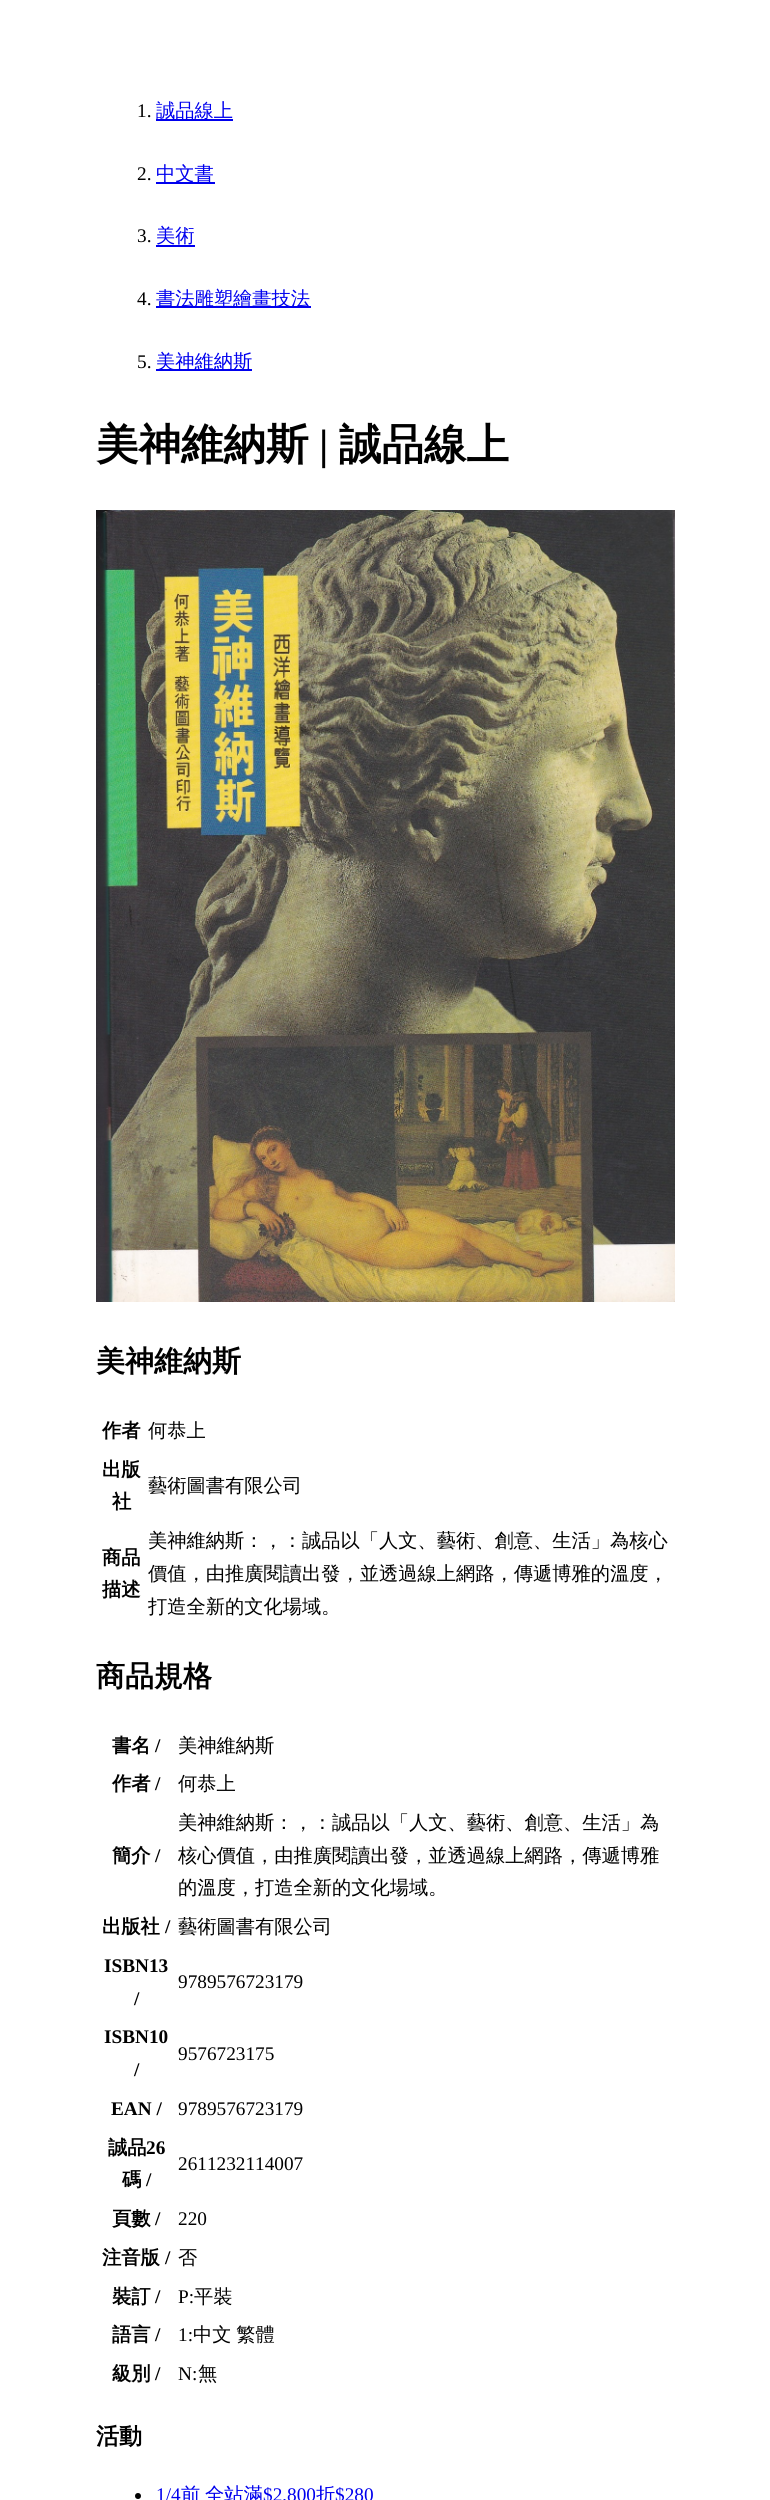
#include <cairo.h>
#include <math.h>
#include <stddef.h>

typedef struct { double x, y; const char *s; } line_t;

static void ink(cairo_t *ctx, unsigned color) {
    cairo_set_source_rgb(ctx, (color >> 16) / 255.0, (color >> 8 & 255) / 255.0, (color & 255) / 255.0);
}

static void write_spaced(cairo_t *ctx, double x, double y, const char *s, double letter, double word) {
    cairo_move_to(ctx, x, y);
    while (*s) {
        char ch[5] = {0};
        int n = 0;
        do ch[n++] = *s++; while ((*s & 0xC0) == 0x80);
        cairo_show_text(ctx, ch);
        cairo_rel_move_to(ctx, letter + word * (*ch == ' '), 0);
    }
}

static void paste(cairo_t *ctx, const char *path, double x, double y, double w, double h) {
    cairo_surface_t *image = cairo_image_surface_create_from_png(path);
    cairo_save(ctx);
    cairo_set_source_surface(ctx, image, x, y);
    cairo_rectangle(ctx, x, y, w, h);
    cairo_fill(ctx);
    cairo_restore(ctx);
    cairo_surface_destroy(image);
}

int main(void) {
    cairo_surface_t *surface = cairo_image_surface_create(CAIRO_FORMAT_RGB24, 770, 2500);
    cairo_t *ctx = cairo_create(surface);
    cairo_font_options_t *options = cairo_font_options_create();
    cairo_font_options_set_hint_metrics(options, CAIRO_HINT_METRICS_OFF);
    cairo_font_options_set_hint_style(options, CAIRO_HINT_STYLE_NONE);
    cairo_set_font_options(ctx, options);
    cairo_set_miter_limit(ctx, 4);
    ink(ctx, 0xFFFFFF);
    cairo_paint(ctx);
    cairo_select_font_face(ctx, "Liberation Serif", CAIRO_FONT_SLANT_NORMAL, CAIRO_FONT_WEIGHT_NORMAL);
    cairo_set_font_size(ctx, 19.25);
    ink(ctx, 0x000000);
    cairo_move_to(ctx, 137, 117);
    cairo_show_text(ctx, "1.");
    ink(ctx, 0x0000EE);
    cairo_rectangle(ctx, 156, 119, 77, 2);
    cairo_fill(ctx);
    cairo_select_font_face(ctx, "WenQuanYi Zen Hei Medium", CAIRO_FONT_SLANT_NORMAL, CAIRO_FONT_WEIGHT_NORMAL);
    cairo_move_to(ctx, 156, 117);
    cairo_show_text(ctx, "誠品線上");
    cairo_select_font_face(ctx, "Liberation Serif", CAIRO_FONT_SLANT_NORMAL, CAIRO_FONT_WEIGHT_NORMAL);
    ink(ctx, 0x000000);
    cairo_move_to(ctx, 137, 180);
    cairo_show_text(ctx, "2.");
    ink(ctx, 0x0000EE);
    cairo_rectangle(ctx, 156, 182, 59, 2);
    cairo_fill(ctx);
    cairo_select_font_face(ctx, "WenQuanYi Zen Hei Medium", CAIRO_FONT_SLANT_NORMAL, CAIRO_FONT_WEIGHT_NORMAL);
    cairo_move_to(ctx, 156, 180);
    cairo_show_text(ctx, "中文書");
    cairo_select_font_face(ctx, "Liberation Serif", CAIRO_FONT_SLANT_NORMAL, CAIRO_FONT_WEIGHT_NORMAL);
    ink(ctx, 0x000000);
    cairo_move_to(ctx, 137, 242);
    cairo_show_text(ctx, "3.");
    cairo_select_font_face(ctx, "WenQuanYi Zen Hei Medium", CAIRO_FONT_SLANT_NORMAL, CAIRO_FONT_WEIGHT_NORMAL);
    ink(ctx, 0x0000EE);
    cairo_move_to(ctx, 156, 242);
    cairo_show_text(ctx, "美術");
    cairo_rectangle(ctx, 156, 245, 39, 2);
    cairo_fill(ctx);
    cairo_select_font_face(ctx, "Liberation Serif", CAIRO_FONT_SLANT_NORMAL, CAIRO_FONT_WEIGHT_NORMAL);
    ink(ctx, 0x000000);
    cairo_move_to(ctx, 137, 305);
    cairo_show_text(ctx, "4.");
    ink(ctx, 0x0000EE);
    cairo_rectangle(ctx, 156, 306, 155, 2);
    cairo_fill(ctx);
    cairo_select_font_face(ctx, "WenQuanYi Zen Hei Medium", CAIRO_FONT_SLANT_NORMAL, CAIRO_FONT_WEIGHT_NORMAL);
    cairo_move_to(ctx, 156, 305);
    cairo_show_text(ctx, "書法雕塑繪畫技法");
    cairo_select_font_face(ctx, "Liberation Serif", CAIRO_FONT_SLANT_NORMAL, CAIRO_FONT_WEIGHT_NORMAL);
    ink(ctx, 0x000000);
    cairo_move_to(ctx, 137, 368);
    cairo_show_text(ctx, "5.");
    ink(ctx, 0x0000EE);
    cairo_rectangle(ctx, 156, 369, 96, 2);
    cairo_fill(ctx);
    cairo_select_font_face(ctx, "WenQuanYi Zen Hei Medium", CAIRO_FONT_SLANT_NORMAL, CAIRO_FONT_WEIGHT_NORMAL);
    cairo_move_to(ctx, 156, 368);
    cairo_show_text(ctx, "美神維納斯");
    cairo_select_font_face(ctx, "WenQuanYi Zen Hei", CAIRO_FONT_SLANT_NORMAL, CAIRO_FONT_WEIGHT_BOLD);
    cairo_set_font_size(ctx, 42.5);
    ink(ctx, 0x000000);
    cairo_move_to(ctx, 96, 459);
    cairo_show_text(ctx, "美神維納斯");
    cairo_select_font_face(ctx, "Liberation Serif", CAIRO_FONT_SLANT_NORMAL, CAIRO_FONT_WEIGHT_BOLD);
    cairo_move_to(ctx, 319, 459);
    cairo_show_text(ctx, "|");
    cairo_select_font_face(ctx, "WenQuanYi Zen Hei", CAIRO_FONT_SLANT_NORMAL, CAIRO_FONT_WEIGHT_BOLD);
    cairo_move_to(ctx, 339, 459);
    cairo_show_text(ctx, "誠品線上");
    paste(ctx, "media/1.png", 96, 510, 579, 792);
    cairo_set_font_size(ctx, 29);
    cairo_move_to(ctx, 96, 1371);
    cairo_show_text(ctx, "美神維納斯");
    cairo_set_font_size(ctx, 19.25);
    cairo_move_to(ctx, 102, 1437);
    cairo_show_text(ctx, "作者");
    cairo_select_font_face(ctx, "WenQuanYi Zen Hei Medium", CAIRO_FONT_SLANT_NORMAL, CAIRO_FONT_WEIGHT_NORMAL);
    cairo_move_to(ctx, 148, 1437);
    cairo_show_text(ctx, "何恭上");
    cairo_select_font_face(ctx, "WenQuanYi Zen Hei", CAIRO_FONT_SLANT_NORMAL, CAIRO_FONT_WEIGHT_BOLD);
    cairo_move_to(ctx, 102, 1476);
    cairo_show_text(ctx, "出版");
    cairo_move_to(ctx, 112, 1508);
    cairo_show_text(ctx, "社");
    cairo_select_font_face(ctx, "WenQuanYi Zen Hei Medium", CAIRO_FONT_SLANT_NORMAL, CAIRO_FONT_WEIGHT_NORMAL);
    cairo_move_to(ctx, 148, 1492);
    cairo_show_text(ctx, "藝術圖書有限公司");
    cairo_select_font_face(ctx, "WenQuanYi Zen Hei", CAIRO_FONT_SLANT_NORMAL, CAIRO_FONT_WEIGHT_BOLD);
    cairo_move_to(ctx, 102, 1564);
    cairo_show_text(ctx, "商品");
    cairo_move_to(ctx, 102, 1596);
    cairo_show_text(ctx, "描述");
    cairo_select_font_face(ctx, "WenQuanYi Zen Hei Medium", CAIRO_FONT_SLANT_NORMAL, CAIRO_FONT_WEIGHT_NORMAL);
    {
        static const line_t items[] = {
            {148, 1547, "美神維納斯：，：誠品以「人文、藝術、創意、生活」為核心"},
            {148, 1580, "價值，由推廣閱讀出發，並透過線上網路，傳遞博雅的溫度，"},
            {148, 1613, "打造全新的文化場域。"},
        };
        for (size_t i = 0; i < sizeof items / sizeof *items; i++) {
            cairo_move_to(ctx, items[i].x, items[i].y);
            cairo_show_text(ctx, items[i].s);
        }
    }
    cairo_select_font_face(ctx, "WenQuanYi Zen Hei", CAIRO_FONT_SLANT_NORMAL, CAIRO_FONT_WEIGHT_BOLD);
    cairo_set_font_size(ctx, 29);
    cairo_move_to(ctx, 96, 1686);
    cairo_show_text(ctx, "商品規格");
    cairo_set_font_size(ctx, 19.25);
    cairo_move_to(ctx, 112, 1752);
    cairo_show_text(ctx, "書名");
    cairo_select_font_face(ctx, "Liberation Serif", CAIRO_FONT_SLANT_NORMAL, CAIRO_FONT_WEIGHT_BOLD);
    cairo_move_to(ctx, 155, 1752);
    cairo_show_text(ctx, "/");
    cairo_select_font_face(ctx, "WenQuanYi Zen Hei Medium", CAIRO_FONT_SLANT_NORMAL, CAIRO_FONT_WEIGHT_NORMAL);
    cairo_move_to(ctx, 178, 1752);
    cairo_show_text(ctx, "美神維納斯");
    cairo_select_font_face(ctx, "WenQuanYi Zen Hei", CAIRO_FONT_SLANT_NORMAL, CAIRO_FONT_WEIGHT_BOLD);
    cairo_move_to(ctx, 112, 1790);
    cairo_show_text(ctx, "作者");
    cairo_select_font_face(ctx, "Liberation Serif", CAIRO_FONT_SLANT_NORMAL, CAIRO_FONT_WEIGHT_BOLD);
    cairo_move_to(ctx, 155, 1790);
    cairo_show_text(ctx, "/");
    cairo_select_font_face(ctx, "WenQuanYi Zen Hei Medium", CAIRO_FONT_SLANT_NORMAL, CAIRO_FONT_WEIGHT_NORMAL);
    cairo_move_to(ctx, 178, 1790);
    cairo_show_text(ctx, "何恭上");
    cairo_select_font_face(ctx, "WenQuanYi Zen Hei", CAIRO_FONT_SLANT_NORMAL, CAIRO_FONT_WEIGHT_BOLD);
    cairo_move_to(ctx, 112, 1862);
    cairo_show_text(ctx, "簡介");
    cairo_select_font_face(ctx, "Liberation Serif", CAIRO_FONT_SLANT_NORMAL, CAIRO_FONT_WEIGHT_BOLD);
    cairo_move_to(ctx, 155, 1862);
    cairo_show_text(ctx, "/");
    cairo_select_font_face(ctx, "WenQuanYi Zen Hei Medium", CAIRO_FONT_SLANT_NORMAL, CAIRO_FONT_WEIGHT_NORMAL);
    {
        static const line_t items[] = {
            {178, 1829, "美神維納斯：，：誠品以「人文、藝術、創意、生活」為"},
            {178, 1862, "核心價值，由推廣閱讀出發，並透過線上網路，傳遞博雅"},
            {178, 1894, "的溫度，打造全新的文化場域。"},
        };
        for (size_t i = 0; i < sizeof items / sizeof *items; i++) {
            cairo_move_to(ctx, items[i].x, items[i].y);
            cairo_show_text(ctx, items[i].s);
        }
    }
    cairo_select_font_face(ctx, "WenQuanYi Zen Hei", CAIRO_FONT_SLANT_NORMAL, CAIRO_FONT_WEIGHT_BOLD);
    cairo_move_to(ctx, 102, 1933);
    cairo_show_text(ctx, "出版社");
    cairo_select_font_face(ctx, "Liberation Serif", CAIRO_FONT_SLANT_NORMAL, CAIRO_FONT_WEIGHT_BOLD);
    cairo_move_to(ctx, 165, 1933);
    cairo_show_text(ctx, "/");
    cairo_select_font_face(ctx, "WenQuanYi Zen Hei Medium", CAIRO_FONT_SLANT_NORMAL, CAIRO_FONT_WEIGHT_NORMAL);
    cairo_move_to(ctx, 178, 1933);
    cairo_show_text(ctx, "藝術圖書有限公司");
    cairo_select_font_face(ctx, "Liberation Serif", CAIRO_FONT_SLANT_NORMAL, CAIRO_FONT_WEIGHT_BOLD);
    cairo_move_to(ctx, 104, 1972);
    cairo_show_text(ctx, "ISBN13");
    cairo_move_to(ctx, 134, 2005);
    cairo_show_text(ctx, "/");
    cairo_select_font_face(ctx, "Liberation Serif", CAIRO_FONT_SLANT_NORMAL, CAIRO_FONT_WEIGHT_NORMAL);
    cairo_move_to(ctx, 178, 1988);
    cairo_show_text(ctx, "9789576723179");
    cairo_select_font_face(ctx, "Liberation Serif", CAIRO_FONT_SLANT_NORMAL, CAIRO_FONT_WEIGHT_BOLD);
    cairo_move_to(ctx, 104, 2043);
    cairo_show_text(ctx, "ISBN10");
    cairo_move_to(ctx, 134, 2076);
    cairo_show_text(ctx, "/");
    cairo_select_font_face(ctx, "Liberation Serif", CAIRO_FONT_SLANT_NORMAL, CAIRO_FONT_WEIGHT_NORMAL);
    cairo_move_to(ctx, 178, 2060);
    cairo_show_text(ctx, "9576723175");
    cairo_select_font_face(ctx, "Liberation Serif", CAIRO_FONT_SLANT_NORMAL, CAIRO_FONT_WEIGHT_BOLD);
    cairo_move_to(ctx, 111, 2115);
    cairo_show_text(ctx, "EAN /");
    cairo_select_font_face(ctx, "Liberation Serif", CAIRO_FONT_SLANT_NORMAL, CAIRO_FONT_WEIGHT_NORMAL);
    cairo_move_to(ctx, 178, 2115);
    cairo_show_text(ctx, "9789576723179");
    cairo_select_font_face(ctx, "WenQuanYi Zen Hei", CAIRO_FONT_SLANT_NORMAL, CAIRO_FONT_WEIGHT_BOLD);
    cairo_move_to(ctx, 108, 2154);
    cairo_show_text(ctx, "誠品");
    cairo_select_font_face(ctx, "Liberation Serif", CAIRO_FONT_SLANT_NORMAL, CAIRO_FONT_WEIGHT_BOLD);
    cairo_move_to(ctx, 146, 2154);
    cairo_show_text(ctx, "26");
    cairo_select_font_face(ctx, "WenQuanYi Zen Hei", CAIRO_FONT_SLANT_NORMAL, CAIRO_FONT_WEIGHT_BOLD);
    cairo_move_to(ctx, 122, 2186);
    cairo_show_text(ctx, "碼");
    cairo_select_font_face(ctx, "Liberation Serif", CAIRO_FONT_SLANT_NORMAL, CAIRO_FONT_WEIGHT_BOLD);
    cairo_move_to(ctx, 146, 2186);
    cairo_show_text(ctx, "/");
    cairo_select_font_face(ctx, "Liberation Serif", CAIRO_FONT_SLANT_NORMAL, CAIRO_FONT_WEIGHT_NORMAL);
    cairo_move_to(ctx, 178, 2170);
    cairo_show_text(ctx, "2611232114007");
    cairo_select_font_face(ctx, "WenQuanYi Zen Hei", CAIRO_FONT_SLANT_NORMAL, CAIRO_FONT_WEIGHT_BOLD);
    cairo_move_to(ctx, 112, 2225);
    cairo_show_text(ctx, "頁數");
    cairo_select_font_face(ctx, "Liberation Serif", CAIRO_FONT_SLANT_NORMAL, CAIRO_FONT_WEIGHT_BOLD);
    cairo_move_to(ctx, 155, 2225);
    cairo_show_text(ctx, "/");
    cairo_select_font_face(ctx, "Liberation Serif", CAIRO_FONT_SLANT_NORMAL, CAIRO_FONT_WEIGHT_NORMAL);
    cairo_move_to(ctx, 178, 2225);
    cairo_show_text(ctx, "220");
    cairo_select_font_face(ctx, "WenQuanYi Zen Hei", CAIRO_FONT_SLANT_NORMAL, CAIRO_FONT_WEIGHT_BOLD);
    cairo_move_to(ctx, 102, 2264);
    cairo_show_text(ctx, "注音版");
    cairo_select_font_face(ctx, "Liberation Serif", CAIRO_FONT_SLANT_NORMAL, CAIRO_FONT_WEIGHT_BOLD);
    cairo_move_to(ctx, 165, 2264);
    cairo_show_text(ctx, "/");
    cairo_select_font_face(ctx, "WenQuanYi Zen Hei Medium", CAIRO_FONT_SLANT_NORMAL, CAIRO_FONT_WEIGHT_NORMAL);
    cairo_move_to(ctx, 178, 2264);
    cairo_show_text(ctx, "否");
    cairo_select_font_face(ctx, "WenQuanYi Zen Hei", CAIRO_FONT_SLANT_NORMAL, CAIRO_FONT_WEIGHT_BOLD);
    cairo_move_to(ctx, 112, 2303);
    cairo_show_text(ctx, "裝訂");
    cairo_select_font_face(ctx, "Liberation Serif", CAIRO_FONT_SLANT_NORMAL, CAIRO_FONT_WEIGHT_BOLD);
    cairo_move_to(ctx, 155, 2303);
    cairo_show_text(ctx, "/");
    cairo_select_font_face(ctx, "Liberation Serif", CAIRO_FONT_SLANT_NORMAL, CAIRO_FONT_WEIGHT_NORMAL);
    cairo_move_to(ctx, 178, 2303);
    cairo_show_text(ctx, "P:");
    cairo_select_font_face(ctx, "WenQuanYi Zen Hei Medium", CAIRO_FONT_SLANT_NORMAL, CAIRO_FONT_WEIGHT_NORMAL);
    cairo_move_to(ctx, 194, 2303);
    cairo_show_text(ctx, "平裝");
    cairo_select_font_face(ctx, "WenQuanYi Zen Hei", CAIRO_FONT_SLANT_NORMAL, CAIRO_FONT_WEIGHT_BOLD);
    cairo_move_to(ctx, 112, 2341);
    cairo_show_text(ctx, "語言");
    cairo_select_font_face(ctx, "Liberation Serif", CAIRO_FONT_SLANT_NORMAL, CAIRO_FONT_WEIGHT_BOLD);
    cairo_move_to(ctx, 155, 2341);
    cairo_show_text(ctx, "/");
    cairo_select_font_face(ctx, "Liberation Serif", CAIRO_FONT_SLANT_NORMAL, CAIRO_FONT_WEIGHT_NORMAL);
    cairo_move_to(ctx, 178, 2341);
    cairo_show_text(ctx, "1:");
    cairo_select_font_face(ctx, "WenQuanYi Zen Hei Medium", CAIRO_FONT_SLANT_NORMAL, CAIRO_FONT_WEIGHT_NORMAL);
    write_spaced(ctx, 193, 2341, "中文 繁體", 0, -1);
    cairo_select_font_face(ctx, "WenQuanYi Zen Hei", CAIRO_FONT_SLANT_NORMAL, CAIRO_FONT_WEIGHT_BOLD);
    cairo_move_to(ctx, 112, 2380);
    cairo_show_text(ctx, "級別");
    cairo_select_font_face(ctx, "Liberation Serif", CAIRO_FONT_SLANT_NORMAL, CAIRO_FONT_WEIGHT_BOLD);
    cairo_move_to(ctx, 155, 2380);
    cairo_show_text(ctx, "/");
    cairo_select_font_face(ctx, "Liberation Serif", CAIRO_FONT_SLANT_NORMAL, CAIRO_FONT_WEIGHT_NORMAL);
    cairo_move_to(ctx, 178, 2380);
    cairo_show_text(ctx, "N:");
    cairo_select_font_face(ctx, "WenQuanYi Zen Hei Medium", CAIRO_FONT_SLANT_NORMAL, CAIRO_FONT_WEIGHT_NORMAL);
    cairo_move_to(ctx, 198, 2380);
    cairo_show_text(ctx, "無");
    cairo_select_font_face(ctx, "WenQuanYi Zen Hei", CAIRO_FONT_SLANT_NORMAL, CAIRO_FONT_WEIGHT_BOLD);
    cairo_set_font_size(ctx, 23);
    cairo_move_to(ctx, 96, 2444);
    cairo_show_text(ctx, "活動");
    cairo_new_path(ctx);
    cairo_arc(ctx, 138, 2496, 3, 0, 2 * M_PI);
    cairo_fill(ctx);
    cairo_select_font_face(ctx, "Liberation Serif", CAIRO_FONT_SLANT_NORMAL, CAIRO_FONT_WEIGHT_NORMAL);
    cairo_set_font_size(ctx, 19.25);
    ink(ctx, 0x0000EE);
    cairo_move_to(ctx, 156, 2501);
    cairo_show_text(ctx, "1/4");
    cairo_select_font_face(ctx, "WenQuanYi Zen Hei Medium", CAIRO_FONT_SLANT_NORMAL, CAIRO_FONT_WEIGHT_NORMAL);
    write_spaced(ctx, 181, 2501, "前 全站滿", 0, -1);
    cairo_select_font_face(ctx, "Liberation Serif", CAIRO_FONT_SLANT_NORMAL, CAIRO_FONT_WEIGHT_NORMAL);
    cairo_move_to(ctx, 263, 2501);
    cairo_show_text(ctx, "$2,800");
    cairo_select_font_face(ctx, "WenQuanYi Zen Hei Medium", CAIRO_FONT_SLANT_NORMAL, CAIRO_FONT_WEIGHT_NORMAL);
    cairo_move_to(ctx, 316, 2501);
    cairo_show_text(ctx, "折");
    cairo_select_font_face(ctx, "Liberation Serif", CAIRO_FONT_SLANT_NORMAL, CAIRO_FONT_WEIGHT_NORMAL);
    cairo_move_to(ctx, 335, 2501);
    cairo_show_text(ctx, "$280");
    cairo_surface_write_to_png(surface, "image.png");
    cairo_font_options_destroy(options);
    cairo_destroy(ctx);
    cairo_surface_destroy(surface);
    return 0;
}
